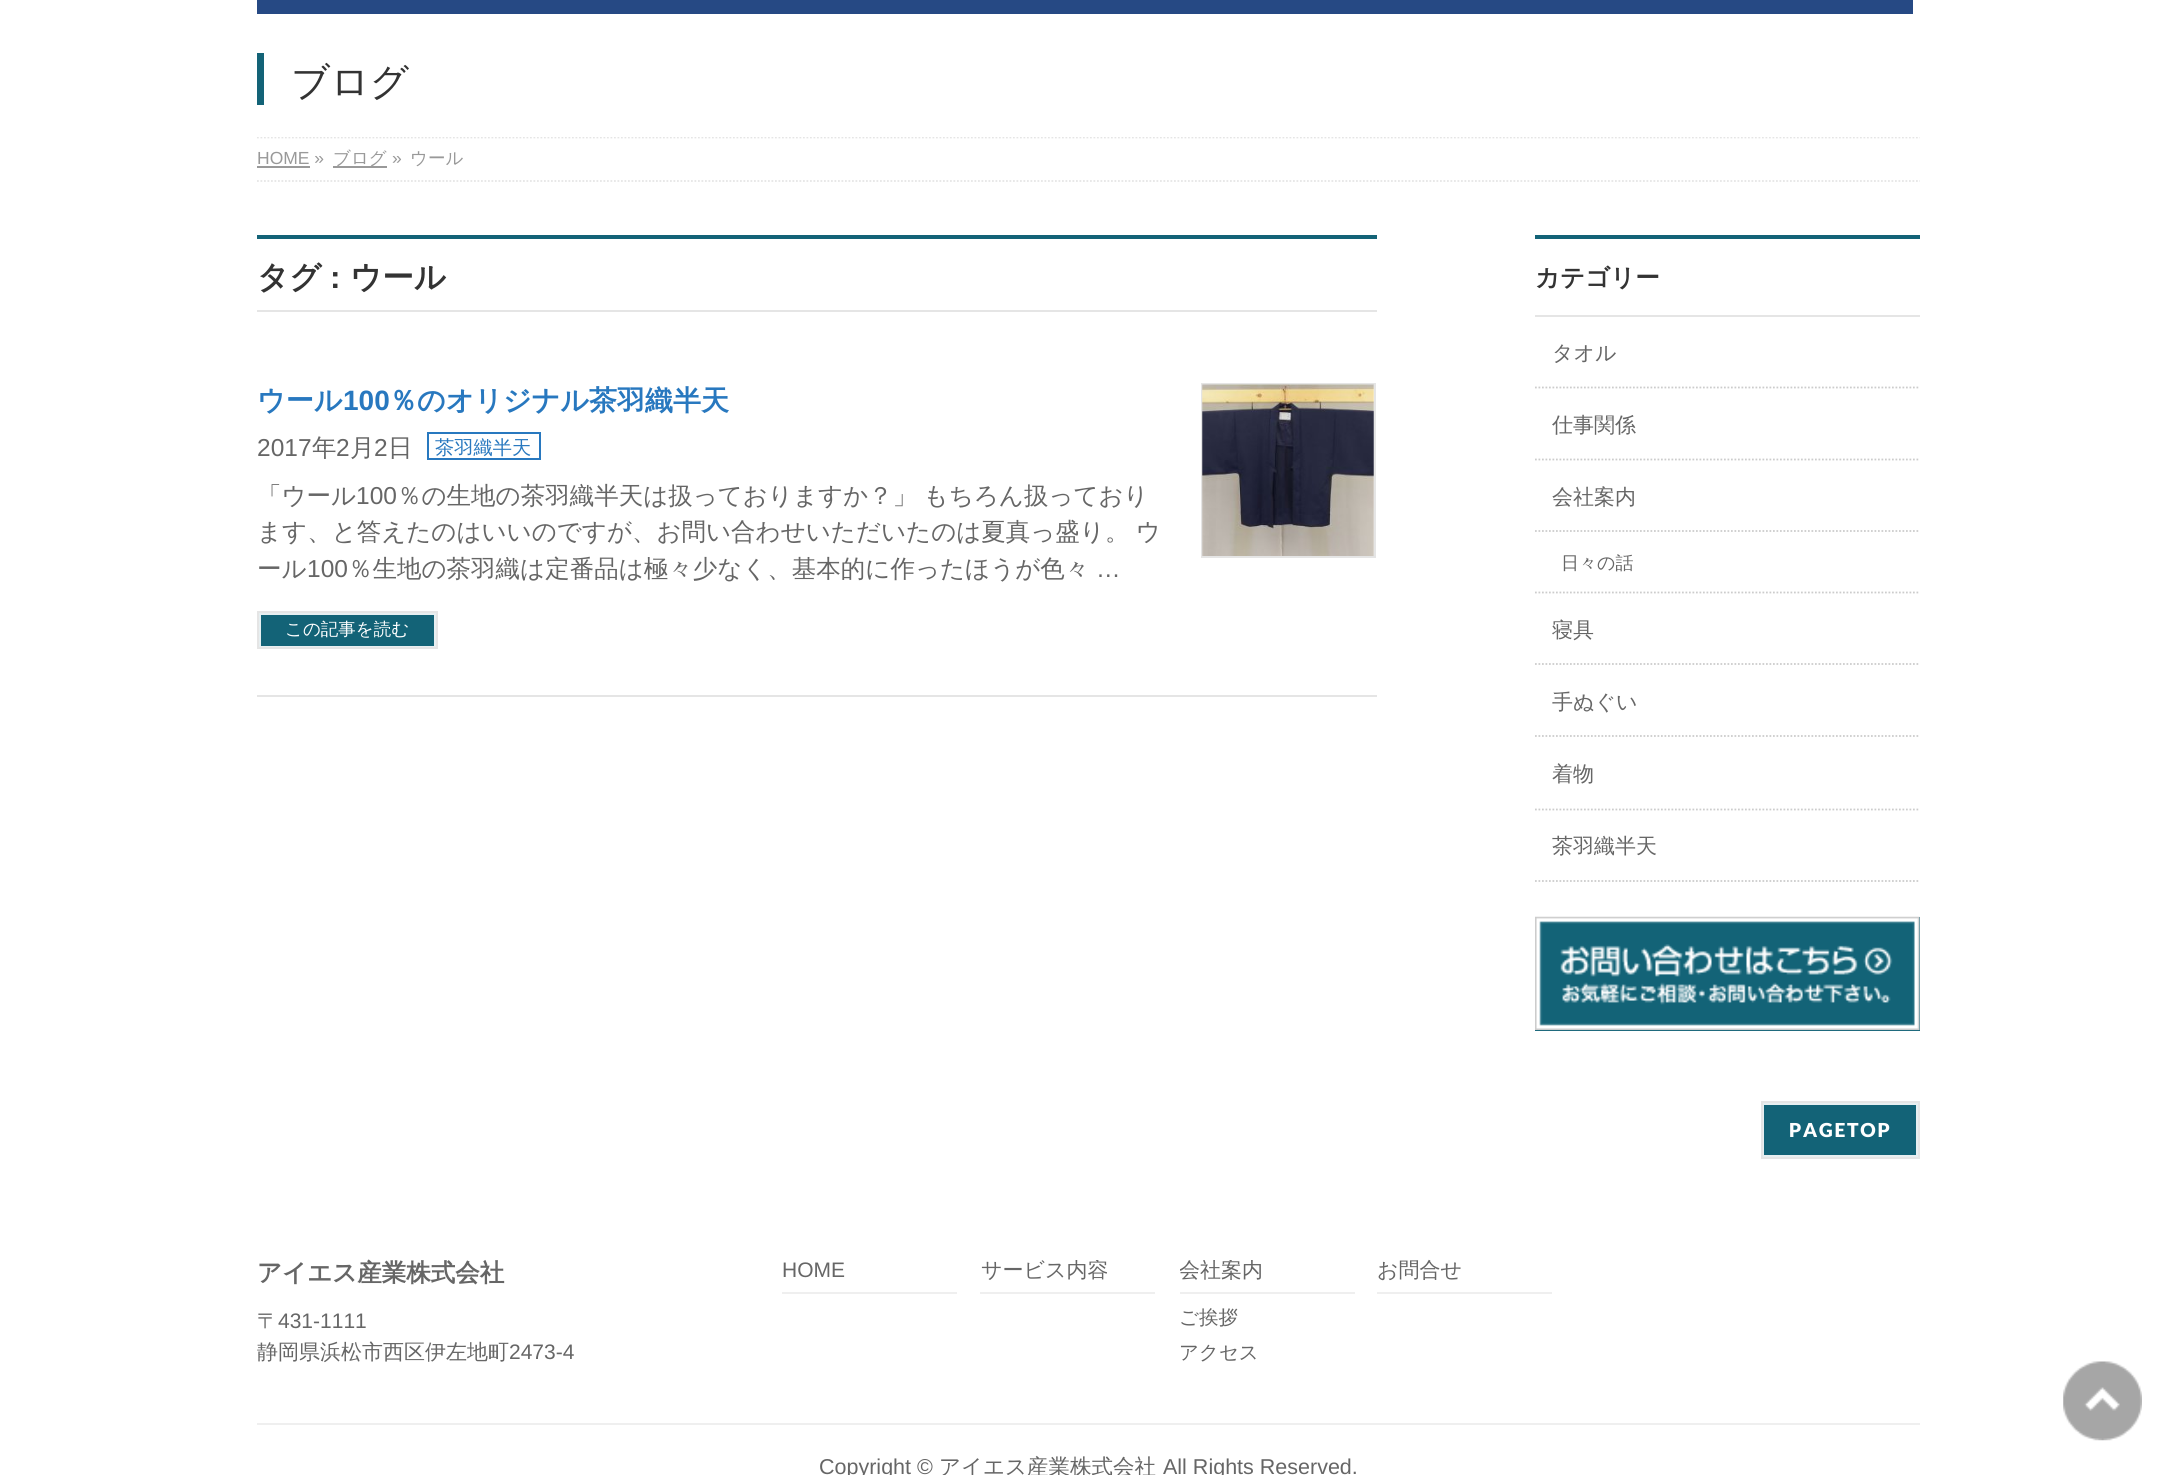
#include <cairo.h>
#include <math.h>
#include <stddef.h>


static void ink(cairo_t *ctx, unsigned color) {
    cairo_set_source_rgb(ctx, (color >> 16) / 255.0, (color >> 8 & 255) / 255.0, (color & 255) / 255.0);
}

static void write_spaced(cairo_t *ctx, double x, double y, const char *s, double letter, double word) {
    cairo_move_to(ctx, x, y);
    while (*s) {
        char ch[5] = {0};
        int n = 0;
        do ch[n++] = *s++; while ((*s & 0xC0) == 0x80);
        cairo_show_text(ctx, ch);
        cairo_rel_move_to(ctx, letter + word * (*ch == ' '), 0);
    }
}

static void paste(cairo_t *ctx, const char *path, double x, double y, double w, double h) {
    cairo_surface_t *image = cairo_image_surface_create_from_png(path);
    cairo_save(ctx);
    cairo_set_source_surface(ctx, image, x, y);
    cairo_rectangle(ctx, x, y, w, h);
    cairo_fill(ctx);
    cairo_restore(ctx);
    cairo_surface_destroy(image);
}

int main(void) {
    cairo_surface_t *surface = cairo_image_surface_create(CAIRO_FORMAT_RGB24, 2176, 1475);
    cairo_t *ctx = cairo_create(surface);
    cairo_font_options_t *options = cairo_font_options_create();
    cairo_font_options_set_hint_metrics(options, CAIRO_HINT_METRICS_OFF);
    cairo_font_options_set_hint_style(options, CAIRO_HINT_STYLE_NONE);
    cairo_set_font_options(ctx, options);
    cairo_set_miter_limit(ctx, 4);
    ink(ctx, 0xFFFFFF);
    cairo_paint(ctx);
    ink(ctx, 0x264984);
    cairo_rectangle(ctx, 257, 0, 1656, 14);
    cairo_fill(ctx);
    ink(ctx, 0x136377);
    cairo_rectangle(ctx, 257, 53, 7, 52);
    cairo_fill(ctx);
    cairo_select_font_face(ctx, "WenQuanYi Zen Hei Medium", CAIRO_FONT_SLANT_NORMAL, CAIRO_FONT_WEIGHT_NORMAL);
    cairo_set_font_size(ctx, 38.5);
    ink(ctx, 0x333333);
    cairo_move_to(ctx, 291, 95);
    cairo_show_text(ctx, "ブログ");
    cairo_save(ctx);
    cairo_rectangle(ctx, 214, 137, 1750, 45);
    cairo_clip(ctx);
    cairo_new_path(ctx);
    cairo_move_to(ctx, 257, 137.5);
    cairo_line_to(ctx, 1920, 137.5);
    ink(ctx, 0xE5E5E5);
    cairo_set_line_width(ctx, 1.8);
    cairo_set_dash(ctx, (double[]){1.75, 1.75}, 2, 0);
    cairo_stroke(ctx);
    cairo_restore(ctx);
    cairo_new_path(ctx);
    cairo_move_to(ctx, 257, 181);
    cairo_line_to(ctx, 1920, 181);
    ink(ctx, 0xE5E5E5);
    cairo_set_line_width(ctx, 1.8);
    cairo_set_dash(ctx, (double[]){1.75, 1.75}, 2, 0);
    cairo_stroke(ctx);
    cairo_select_font_face(ctx, "Liberation Sans", CAIRO_FONT_SLANT_NORMAL, CAIRO_FONT_WEIGHT_NORMAL);
    cairo_set_font_size(ctx, 17.5);
    ink(ctx, 0x999999);
    cairo_move_to(ctx, 257, 164);
    cairo_show_text(ctx, "HOME »");
    cairo_rectangle(ctx, 257, 166, 53, 2);
    cairo_fill(ctx);
    cairo_rectangle(ctx, 333, 166, 54, 2);
    cairo_fill(ctx);
    cairo_select_font_face(ctx, "WenQuanYi Zen Hei Medium", CAIRO_FONT_SLANT_NORMAL, CAIRO_FONT_WEIGHT_NORMAL);
    cairo_move_to(ctx, 333, 164);
    cairo_show_text(ctx, "ブログ");
    cairo_select_font_face(ctx, "Liberation Sans", CAIRO_FONT_SLANT_NORMAL, CAIRO_FONT_WEIGHT_NORMAL);
    cairo_move_to(ctx, 392, 164);
    cairo_show_text(ctx, "»");
    cairo_select_font_face(ctx, "WenQuanYi Zen Hei Medium", CAIRO_FONT_SLANT_NORMAL, CAIRO_FONT_WEIGHT_NORMAL);
    cairo_move_to(ctx, 410, 164);
    cairo_show_text(ctx, "ウール");
    ink(ctx, 0x136377);
    cairo_rectangle(ctx, 257, 235, 1120, 4);
    cairo_fill(ctx);
    ink(ctx, 0xE5E5E5);
    cairo_rectangle(ctx, 257, 310, 1120, 2);
    cairo_fill(ctx);
    cairo_select_font_face(ctx, "WenQuanYi Zen Hei", CAIRO_FONT_SLANT_NORMAL, CAIRO_FONT_WEIGHT_BOLD);
    cairo_set_font_size(ctx, 31.5);
    ink(ctx, 0x333333);
    cairo_move_to(ctx, 257, 288);
    cairo_show_text(ctx, "タグ");
    cairo_select_font_face(ctx, "Liberation Sans", CAIRO_FONT_SLANT_NORMAL, CAIRO_FONT_WEIGHT_BOLD);
    cairo_move_to(ctx, 330, 288);
    cairo_show_text(ctx, ":");
    cairo_select_font_face(ctx, "WenQuanYi Zen Hei", CAIRO_FONT_SLANT_NORMAL, CAIRO_FONT_WEIGHT_BOLD);
    cairo_move_to(ctx, 350, 288);
    cairo_show_text(ctx, "ウール");
    ink(ctx, 0xE5E5E5);
    cairo_rectangle(ctx, 257, 695, 1120, 2);
    cairo_fill(ctx);
    cairo_set_font_size(ctx, 28);
    ink(ctx, 0x2878BF);
    cairo_move_to(ctx, 257, 410);
    cairo_show_text(ctx, "ウール");
    cairo_select_font_face(ctx, "Liberation Sans", CAIRO_FONT_SLANT_NORMAL, CAIRO_FONT_WEIGHT_BOLD);
    cairo_move_to(ctx, 343, 410);
    cairo_show_text(ctx, "100");
    cairo_select_font_face(ctx, "WenQuanYi Zen Hei", CAIRO_FONT_SLANT_NORMAL, CAIRO_FONT_WEIGHT_BOLD);
    cairo_move_to(ctx, 389, 410);
    cairo_show_text(ctx, "％のオリジナル茶羽織半天");
    cairo_select_font_face(ctx, "Liberation Sans", CAIRO_FONT_SLANT_NORMAL, CAIRO_FONT_WEIGHT_NORMAL);
    cairo_set_font_size(ctx, 24.5);
    ink(ctx, 0x666666);
    cairo_move_to(ctx, 257, 456);
    cairo_show_text(ctx, "2017");
    cairo_select_font_face(ctx, "WenQuanYi Zen Hei Medium", CAIRO_FONT_SLANT_NORMAL, CAIRO_FONT_WEIGHT_NORMAL);
    cairo_move_to(ctx, 312, 456);
    cairo_show_text(ctx, "年");
    cairo_select_font_face(ctx, "Liberation Sans", CAIRO_FONT_SLANT_NORMAL, CAIRO_FONT_WEIGHT_NORMAL);
    cairo_move_to(ctx, 336, 456);
    cairo_show_text(ctx, "2");
    cairo_select_font_face(ctx, "WenQuanYi Zen Hei Medium", CAIRO_FONT_SLANT_NORMAL, CAIRO_FONT_WEIGHT_NORMAL);
    cairo_move_to(ctx, 350, 456);
    cairo_show_text(ctx, "月");
    cairo_select_font_face(ctx, "Liberation Sans", CAIRO_FONT_SLANT_NORMAL, CAIRO_FONT_WEIGHT_NORMAL);
    cairo_move_to(ctx, 374, 456);
    cairo_show_text(ctx, "2");
    cairo_select_font_face(ctx, "WenQuanYi Zen Hei Medium", CAIRO_FONT_SLANT_NORMAL, CAIRO_FONT_WEIGHT_NORMAL);
    cairo_move_to(ctx, 388, 456);
    cairo_show_text(ctx, "日");
    cairo_rectangle(ctx, 428, 433, 112, 26);
    ink(ctx, 0x2878BF);
    cairo_set_line_width(ctx, 2);
    cairo_set_dash(ctx, NULL, 0, 0);
    cairo_stroke(ctx);
    cairo_set_font_size(ctx, 19.25);
    cairo_move_to(ctx, 435, 454);
    cairo_show_text(ctx, "茶羽織半天");
    cairo_set_font_size(ctx, 24.5);
    ink(ctx, 0x666666);
    cairo_move_to(ctx, 257, 504);
    cairo_show_text(ctx, "「ウール");
    cairo_select_font_face(ctx, "Liberation Sans", CAIRO_FONT_SLANT_NORMAL, CAIRO_FONT_WEIGHT_NORMAL);
    cairo_move_to(ctx, 356, 504);
    cairo_show_text(ctx, "100");
    cairo_select_font_face(ctx, "WenQuanYi Zen Hei Medium", CAIRO_FONT_SLANT_NORMAL, CAIRO_FONT_WEIGHT_NORMAL);
    write_spaced(ctx, 397, 504, "％の生地の茶羽織半天は扱っておりますか？」 もちろん扱っており", 0, -1);
    write_spaced(ctx, 257, 540, "ます、と答えたのはいいのですが、お問い合わせいただいたのは夏真っ盛り。 ウ", 0, -1);
    cairo_move_to(ctx, 257, 577);
    cairo_show_text(ctx, "ール");
    cairo_select_font_face(ctx, "Liberation Sans", CAIRO_FONT_SLANT_NORMAL, CAIRO_FONT_WEIGHT_NORMAL);
    cairo_move_to(ctx, 307, 577);
    cairo_show_text(ctx, "100");
    cairo_select_font_face(ctx, "WenQuanYi Zen Hei Medium", CAIRO_FONT_SLANT_NORMAL, CAIRO_FONT_WEIGHT_NORMAL);
    cairo_move_to(ctx, 348, 577);
    cairo_show_text(ctx, "％生地の茶羽織は定番品は極々少なく、基本的に作ったほうが色々");
    cairo_select_font_face(ctx, "Liberation Sans", CAIRO_FONT_SLANT_NORMAL, CAIRO_FONT_WEIGHT_NORMAL);
    cairo_move_to(ctx, 1096, 577);
    cairo_show_text(ctx, "…");
    ink(ctx, 0x136377);
    cairo_rectangle(ctx, 260, 614, 175, 33);
    cairo_fill_preserve(ctx);
    ink(ctx, 0xE7EFF1);
    cairo_stroke(ctx);
    cairo_rectangle(ctx, 258, 612, 179, 36);
    ink(ctx, 0xE5E5E5);
    cairo_stroke(ctx);
    cairo_select_font_face(ctx, "WenQuanYi Zen Hei Medium", CAIRO_FONT_SLANT_NORMAL, CAIRO_FONT_WEIGHT_NORMAL);
    cairo_set_font_size(ctx, 17.5);
    ink(ctx, 0xFFFFFF);
    cairo_move_to(ctx, 285, 635);
    cairo_show_text(ctx, "この記事を読む");
    cairo_rectangle(ctx, 1202, 384, 173, 173);
    ink(ctx, 0xE5E5E5);
    cairo_stroke(ctx);
    paste(ctx, "media/1.png", 1202, 384, 172, 172);
    ink(ctx, 0x136377);
    cairo_rectangle(ctx, 1535, 235, 385, 4);
    cairo_fill(ctx);
    ink(ctx, 0xE5E5E5);
    cairo_rectangle(ctx, 1535, 315, 385, 2);
    cairo_fill(ctx);
    cairo_select_font_face(ctx, "WenQuanYi Zen Hei", CAIRO_FONT_SLANT_NORMAL, CAIRO_FONT_WEIGHT_BOLD);
    cairo_set_font_size(ctx, 24.5);
    ink(ctx, 0x333333);
    cairo_move_to(ctx, 1535, 286);
    cairo_show_text(ctx, "カテゴリー");
    cairo_new_path(ctx);
    cairo_move_to(ctx, 1535, 387.5);
    cairo_line_to(ctx, 1920, 387.5);
    ink(ctx, 0xCCCCCC);
    cairo_set_line_width(ctx, 1.8);
    cairo_set_dash(ctx, (double[]){1.75, 1.75}, 2, 0);
    cairo_stroke(ctx);
    cairo_select_font_face(ctx, "WenQuanYi Zen Hei Medium", CAIRO_FONT_SLANT_NORMAL, CAIRO_FONT_WEIGHT_NORMAL);
    cairo_set_font_size(ctx, 21);
    ink(ctx, 0x666666);
    cairo_move_to(ctx, 1552, 360);
    cairo_show_text(ctx, "タオル");
    cairo_new_path(ctx);
    cairo_move_to(ctx, 1535, 459.5);
    cairo_line_to(ctx, 1920, 459.5);
    ink(ctx, 0xCCCCCC);
    cairo_stroke(ctx);
    ink(ctx, 0x666666);
    cairo_move_to(ctx, 1552, 432);
    cairo_show_text(ctx, "仕事関係");
    cairo_new_path(ctx);
    cairo_move_to(ctx, 1535, 592.5);
    cairo_line_to(ctx, 1920, 592.5);
    ink(ctx, 0xCCCCCC);
    cairo_stroke(ctx);
    ink(ctx, 0x666666);
    cairo_move_to(ctx, 1552, 504);
    cairo_show_text(ctx, "会社案内");
    cairo_new_path(ctx);
    cairo_move_to(ctx, 1535, 531);
    cairo_line_to(ctx, 1920, 531);
    ink(ctx, 0xCCCCCC);
    cairo_stroke(ctx);
    cairo_set_font_size(ctx, 18);
    ink(ctx, 0x666666);
    cairo_move_to(ctx, 1561, 569);
    cairo_show_text(ctx, "日々の話");
    cairo_new_path(ctx);
    cairo_move_to(ctx, 1535, 664);
    cairo_line_to(ctx, 1920, 664);
    ink(ctx, 0xCCCCCC);
    cairo_stroke(ctx);
    cairo_set_font_size(ctx, 21);
    ink(ctx, 0x666666);
    cairo_move_to(ctx, 1552, 637);
    cairo_show_text(ctx, "寝具");
    cairo_new_path(ctx);
    cairo_move_to(ctx, 1535, 736);
    cairo_line_to(ctx, 1920, 736);
    ink(ctx, 0xCCCCCC);
    cairo_stroke(ctx);
    ink(ctx, 0x666666);
    cairo_move_to(ctx, 1552, 709);
    cairo_show_text(ctx, "手ぬぐい");
    cairo_new_path(ctx);
    cairo_move_to(ctx, 1535, 809.5);
    cairo_line_to(ctx, 1920, 809.5);
    ink(ctx, 0xCCCCCC);
    cairo_stroke(ctx);
    ink(ctx, 0x666666);
    cairo_move_to(ctx, 1552, 781);
    cairo_show_text(ctx, "着物");
    cairo_new_path(ctx);
    cairo_move_to(ctx, 1535, 881);
    cairo_line_to(ctx, 1920, 881);
    ink(ctx, 0xCCCCCC);
    cairo_stroke(ctx);
    ink(ctx, 0x666666);
    cairo_move_to(ctx, 1552, 853);
    cairo_show_text(ctx, "茶羽織半天");
    ink(ctx, 0x136377);
    cairo_rectangle(ctx, 1535, 917, 385, 114);
    cairo_fill(ctx);
    paste(ctx, "media/2.png", 1535, 916, 385, 115);
    cairo_rectangle(ctx, 1763, 1104, 154, 52);
    cairo_fill_preserve(ctx);
    ink(ctx, 0xE7EFF1);
    cairo_set_line_width(ctx, 2);
    cairo_set_dash(ctx, NULL, 0, 0);
    cairo_stroke(ctx);
    cairo_rectangle(ctx, 1762, 1102, 157, 56);
    ink(ctx, 0xE5E5E5);
    cairo_stroke(ctx);
    cairo_select_font_face(ctx, "Lato Black", CAIRO_FONT_SLANT_NORMAL, CAIRO_FONT_WEIGHT_NORMAL);
    cairo_set_font_size(ctx, 19.25);
    ink(ctx, 0xFFFFFF);
    write_spaced(ctx, 1789, 1137, "PAGETOP", 1.75, 0);
    cairo_select_font_face(ctx, "WenQuanYi Zen Hei", CAIRO_FONT_SLANT_NORMAL, CAIRO_FONT_WEIGHT_BOLD);
    cairo_set_font_size(ctx, 24.5);
    ink(ctx, 0x666666);
    cairo_move_to(ctx, 257, 1281);
    cairo_show_text(ctx, "アイエス産業株式会社");
    cairo_select_font_face(ctx, "WenQuanYi Zen Hei Medium", CAIRO_FONT_SLANT_NORMAL, CAIRO_FONT_WEIGHT_NORMAL);
    cairo_set_font_size(ctx, 21);
    cairo_move_to(ctx, 257, 1328);
    cairo_show_text(ctx, "〒");
    cairo_select_font_face(ctx, "Liberation Sans", CAIRO_FONT_SLANT_NORMAL, CAIRO_FONT_WEIGHT_NORMAL);
    cairo_move_to(ctx, 278, 1328);
    cairo_show_text(ctx, "431-1111");
    cairo_select_font_face(ctx, "WenQuanYi Zen Hei Medium", CAIRO_FONT_SLANT_NORMAL, CAIRO_FONT_WEIGHT_NORMAL);
    cairo_move_to(ctx, 257, 1359);
    cairo_show_text(ctx, "静岡県浜松市西区伊左地町");
    cairo_select_font_face(ctx, "Liberation Sans", CAIRO_FONT_SLANT_NORMAL, CAIRO_FONT_WEIGHT_NORMAL);
    cairo_move_to(ctx, 509, 1359);
    cairo_show_text(ctx, "2473-4");
    ink(ctx, 0xEFEFEF);
    cairo_rectangle(ctx, 782, 1292, 175, 2);
    cairo_fill(ctx);
    ink(ctx, 0x666666);
    cairo_move_to(ctx, 782, 1277);
    cairo_show_text(ctx, "HOME");
    ink(ctx, 0xEFEFEF);
    cairo_rectangle(ctx, 980, 1292, 175, 2);
    cairo_fill(ctx);
    cairo_save(ctx);
    cairo_rectangle(ctx, 980, 1260, 175, 32);
    cairo_clip(ctx);
    cairo_select_font_face(ctx, "WenQuanYi Zen Hei Medium", CAIRO_FONT_SLANT_NORMAL, CAIRO_FONT_WEIGHT_NORMAL);
    ink(ctx, 0x666666);
    cairo_move_to(ctx, 981, 1277);
    cairo_show_text(ctx, "サービス内容");
    cairo_restore(ctx);
    cairo_rectangle(ctx, 1180, 1292, 175, 2);
    cairo_fill(ctx);
    cairo_save(ctx);
    cairo_rectangle(ctx, 1180, 1260, 175, 32);
    cairo_clip(ctx);
    cairo_select_font_face(ctx, "WenQuanYi Zen Hei Medium", CAIRO_FONT_SLANT_NORMAL, CAIRO_FONT_WEIGHT_NORMAL);
    ink(ctx, 0x666666);
    cairo_move_to(ctx, 1179, 1277);
    cairo_show_text(ctx, "会社案内");
    cairo_restore(ctx);
    cairo_select_font_face(ctx, "WenQuanYi Zen Hei Medium", CAIRO_FONT_SLANT_NORMAL, CAIRO_FONT_WEIGHT_NORMAL);
    cairo_set_font_size(ctx, 19.5);
    ink(ctx, 0x666666);
    cairo_move_to(ctx, 1179, 1324);
    cairo_show_text(ctx, "ご挨拶");
    cairo_move_to(ctx, 1179, 1359);
    cairo_show_text(ctx, "アクセス");
    ink(ctx, 0xEFEFEF);
    cairo_rectangle(ctx, 1377, 1292, 175, 2);
    cairo_fill(ctx);
    cairo_set_font_size(ctx, 21);
    ink(ctx, 0x666666);
    cairo_move_to(ctx, 1377, 1277);
    cairo_show_text(ctx, "お問合せ");
    ink(ctx, 0xEFEFEF);
    cairo_rectangle(ctx, 257, 1423, 1663, 2);
    cairo_fill(ctx);
    cairo_select_font_face(ctx, "Liberation Sans", CAIRO_FONT_SLANT_NORMAL, CAIRO_FONT_WEIGHT_NORMAL);
    cairo_set_font_size(ctx, 21.5);
    ink(ctx, 0x666666);
    cairo_move_to(ctx, 819, 1474);
    cairo_show_text(ctx, "Copyright ©");
    cairo_select_font_face(ctx, "WenQuanYi Zen Hei Medium", CAIRO_FONT_SLANT_NORMAL, CAIRO_FONT_WEIGHT_NORMAL);
    cairo_move_to(ctx, 939, 1474);
    cairo_show_text(ctx, "アイエス産業株式会社");
    cairo_select_font_face(ctx, "Liberation Sans", CAIRO_FONT_SLANT_NORMAL, CAIRO_FONT_WEIGHT_NORMAL);
    cairo_move_to(ctx, 1163, 1474);
    cairo_show_text(ctx, "All Rights Reserved.");
    paste(ctx, "media/3.png", 2063, 1361, 79, 80);
    cairo_surface_write_to_png(surface, "image.png");
    cairo_font_options_destroy(options);
    cairo_destroy(ctx);
    cairo_surface_destroy(surface);
    return 0;
}
